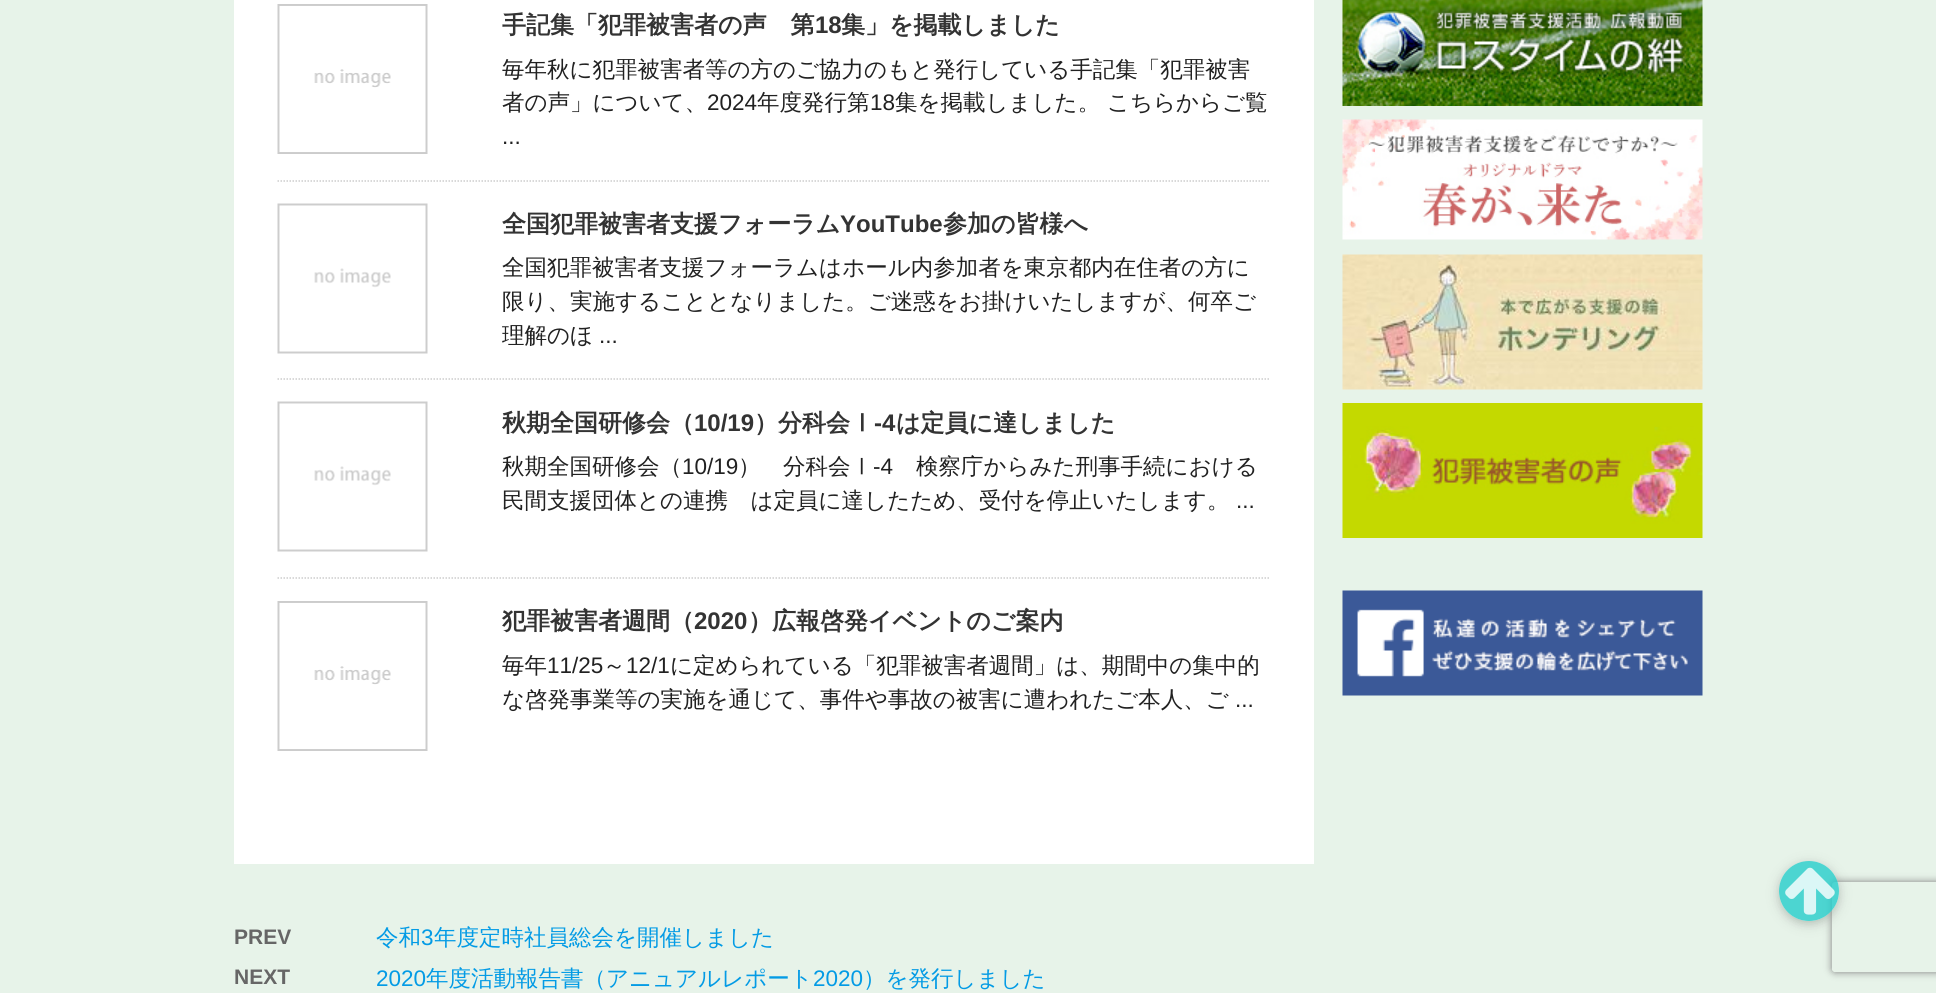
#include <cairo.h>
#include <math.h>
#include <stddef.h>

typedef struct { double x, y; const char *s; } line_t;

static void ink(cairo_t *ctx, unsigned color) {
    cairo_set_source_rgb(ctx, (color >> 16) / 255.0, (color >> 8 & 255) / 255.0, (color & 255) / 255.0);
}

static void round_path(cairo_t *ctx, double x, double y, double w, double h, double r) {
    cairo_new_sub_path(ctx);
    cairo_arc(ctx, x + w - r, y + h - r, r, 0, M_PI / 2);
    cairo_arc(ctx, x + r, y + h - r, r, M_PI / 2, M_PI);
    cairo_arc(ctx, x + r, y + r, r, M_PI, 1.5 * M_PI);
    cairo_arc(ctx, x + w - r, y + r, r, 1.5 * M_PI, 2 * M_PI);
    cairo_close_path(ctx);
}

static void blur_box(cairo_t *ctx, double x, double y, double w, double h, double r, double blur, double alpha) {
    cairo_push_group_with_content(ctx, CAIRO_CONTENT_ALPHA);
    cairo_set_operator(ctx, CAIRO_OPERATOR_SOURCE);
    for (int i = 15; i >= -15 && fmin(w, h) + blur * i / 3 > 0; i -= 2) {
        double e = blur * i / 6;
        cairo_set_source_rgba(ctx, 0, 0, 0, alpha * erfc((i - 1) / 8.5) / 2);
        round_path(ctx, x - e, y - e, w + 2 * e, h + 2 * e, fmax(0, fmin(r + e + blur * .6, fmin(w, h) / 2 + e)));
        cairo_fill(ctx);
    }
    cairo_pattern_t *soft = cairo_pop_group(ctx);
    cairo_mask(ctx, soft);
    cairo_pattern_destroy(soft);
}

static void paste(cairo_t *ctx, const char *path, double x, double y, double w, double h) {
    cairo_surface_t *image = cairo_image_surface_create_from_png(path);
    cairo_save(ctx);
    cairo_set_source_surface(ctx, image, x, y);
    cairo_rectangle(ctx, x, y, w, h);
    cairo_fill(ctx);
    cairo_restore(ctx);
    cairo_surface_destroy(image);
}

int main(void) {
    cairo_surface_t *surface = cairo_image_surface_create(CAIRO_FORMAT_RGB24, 1936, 993);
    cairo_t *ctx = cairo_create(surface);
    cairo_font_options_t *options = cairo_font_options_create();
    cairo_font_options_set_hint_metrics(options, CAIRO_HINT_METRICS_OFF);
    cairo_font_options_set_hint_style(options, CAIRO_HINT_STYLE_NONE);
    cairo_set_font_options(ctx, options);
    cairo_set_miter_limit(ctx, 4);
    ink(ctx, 0xE7F3E9);
    cairo_paint(ctx);
    ink(ctx, 0xFFFFFF);
    cairo_rectangle(ctx, 234, 0, 1080, 864);
    cairo_fill(ctx);
    cairo_new_path(ctx);
    cairo_move_to(ctx, 277.5, 181);
    cairo_line_to(ctx, 1270.5, 181);
    ink(ctx, 0xCCCCCC);
    cairo_set_line_width(ctx, 1.5);
    cairo_set_dash(ctx, (double[]){1.5, 1.5}, 2, 0);
    cairo_stroke(ctx);
    paste(ctx, "media/1.png", 277, 4, 151, 150);
    cairo_select_font_face(ctx, "WenQuanYi Zen Hei", CAIRO_FONT_SLANT_NORMAL, CAIRO_FONT_WEIGHT_BOLD);
    cairo_set_font_size(ctx, 24);
    ink(ctx, 0x333333);
    cairo_move_to(ctx, 502, 33);
    cairo_show_text(ctx, "手記集「犯罪被害者の声　第");
    cairo_select_font_face(ctx, "Liberation Sans", CAIRO_FONT_SLANT_NORMAL, CAIRO_FONT_WEIGHT_BOLD);
    cairo_move_to(ctx, 815, 33);
    cairo_show_text(ctx, "18");
    cairo_select_font_face(ctx, "WenQuanYi Zen Hei", CAIRO_FONT_SLANT_NORMAL, CAIRO_FONT_WEIGHT_BOLD);
    cairo_move_to(ctx, 841, 33);
    cairo_show_text(ctx, "集」を掲載しました");
    cairo_select_font_face(ctx, "WenQuanYi Zen Hei Medium", CAIRO_FONT_SLANT_NORMAL, CAIRO_FONT_WEIGHT_NORMAL);
    cairo_set_font_size(ctx, 22.5);
    ink(ctx, 0x212121);
    cairo_move_to(ctx, 502, 77);
    cairo_show_text(ctx, "毎年秋に犯罪被害者等の方のご協力のもと発行している手記集「犯罪被害");
    cairo_move_to(ctx, 502, 110);
    cairo_show_text(ctx, "者の声」について、");
    cairo_select_font_face(ctx, "Liberation Sans", CAIRO_FONT_SLANT_NORMAL, CAIRO_FONT_WEIGHT_NORMAL);
    cairo_move_to(ctx, 707, 110);
    cairo_show_text(ctx, "2024");
    cairo_select_font_face(ctx, "WenQuanYi Zen Hei Medium", CAIRO_FONT_SLANT_NORMAL, CAIRO_FONT_WEIGHT_NORMAL);
    cairo_move_to(ctx, 757, 110);
    cairo_show_text(ctx, "年度発行第");
    cairo_select_font_face(ctx, "Liberation Sans", CAIRO_FONT_SLANT_NORMAL, CAIRO_FONT_WEIGHT_NORMAL);
    cairo_move_to(ctx, 870, 110);
    cairo_show_text(ctx, "18");
    cairo_select_font_face(ctx, "WenQuanYi Zen Hei Medium", CAIRO_FONT_SLANT_NORMAL, CAIRO_FONT_WEIGHT_NORMAL);
    cairo_move_to(ctx, 895, 110);
    cairo_show_text(ctx, "集を掲載しました。 こちらからご覧");
    cairo_select_font_face(ctx, "Liberation Sans", CAIRO_FONT_SLANT_NORMAL, CAIRO_FONT_WEIGHT_NORMAL);
    cairo_move_to(ctx, 502, 144);
    cairo_show_text(ctx, "...");
    cairo_new_path(ctx);
    cairo_move_to(ctx, 277.5, 379);
    cairo_line_to(ctx, 1270.5, 379);
    ink(ctx, 0xCCCCCC);
    cairo_stroke(ctx);
    paste(ctx, "media/2.png", 277, 203, 151, 151);
    cairo_select_font_face(ctx, "WenQuanYi Zen Hei", CAIRO_FONT_SLANT_NORMAL, CAIRO_FONT_WEIGHT_BOLD);
    cairo_set_font_size(ctx, 24);
    ink(ctx, 0x333333);
    cairo_move_to(ctx, 502, 232);
    cairo_show_text(ctx, "全国犯罪被害者支援フォーラム");
    cairo_select_font_face(ctx, "Liberation Sans", CAIRO_FONT_SLANT_NORMAL, CAIRO_FONT_WEIGHT_BOLD);
    cairo_move_to(ctx, 840, 232);
    cairo_show_text(ctx, "YouTube");
    cairo_select_font_face(ctx, "WenQuanYi Zen Hei", CAIRO_FONT_SLANT_NORMAL, CAIRO_FONT_WEIGHT_BOLD);
    cairo_move_to(ctx, 943, 232);
    cairo_show_text(ctx, "参加の皆様へ");
    cairo_select_font_face(ctx, "WenQuanYi Zen Hei Medium", CAIRO_FONT_SLANT_NORMAL, CAIRO_FONT_WEIGHT_NORMAL);
    cairo_set_font_size(ctx, 22.5);
    ink(ctx, 0x212121);
    {
        static const line_t items[] = {
            {502, 275, "全国犯罪被害者支援フォーラムはホール内参加者を東京都内在住者の方に"},
            {502, 309, "限り、実施することとなりました。ご迷惑をお掛けいたしますが、何卒ご"},
            {502, 343, "理解のほ"},
        };
        for (size_t i = 0; i < sizeof items / sizeof *items; i++) {
            cairo_move_to(ctx, items[i].x, items[i].y);
            cairo_show_text(ctx, items[i].s);
        }
    }
    cairo_select_font_face(ctx, "Liberation Sans", CAIRO_FONT_SLANT_NORMAL, CAIRO_FONT_WEIGHT_NORMAL);
    cairo_move_to(ctx, 599, 343);
    cairo_show_text(ctx, "...");
    cairo_new_path(ctx);
    cairo_move_to(ctx, 277.5, 578);
    cairo_line_to(ctx, 1270.5, 578);
    ink(ctx, 0xCCCCCC);
    cairo_stroke(ctx);
    paste(ctx, "media/2.png", 277, 401, 151, 151);
    cairo_select_font_face(ctx, "WenQuanYi Zen Hei", CAIRO_FONT_SLANT_NORMAL, CAIRO_FONT_WEIGHT_BOLD);
    cairo_set_font_size(ctx, 24);
    ink(ctx, 0x333333);
    cairo_move_to(ctx, 502, 431);
    cairo_show_text(ctx, "秋期全国研修会（");
    cairo_select_font_face(ctx, "Liberation Sans", CAIRO_FONT_SLANT_NORMAL, CAIRO_FONT_WEIGHT_BOLD);
    cairo_move_to(ctx, 694, 431);
    cairo_show_text(ctx, "10/19");
    cairo_select_font_face(ctx, "WenQuanYi Zen Hei", CAIRO_FONT_SLANT_NORMAL, CAIRO_FONT_WEIGHT_BOLD);
    cairo_move_to(ctx, 754, 431);
    cairo_show_text(ctx, "）分科会Ⅰ");
    cairo_select_font_face(ctx, "Liberation Sans", CAIRO_FONT_SLANT_NORMAL, CAIRO_FONT_WEIGHT_BOLD);
    cairo_move_to(ctx, 874, 431);
    cairo_show_text(ctx, "-4");
    cairo_select_font_face(ctx, "WenQuanYi Zen Hei", CAIRO_FONT_SLANT_NORMAL, CAIRO_FONT_WEIGHT_BOLD);
    cairo_move_to(ctx, 896, 431);
    cairo_show_text(ctx, "は定員に達しました");
    cairo_select_font_face(ctx, "WenQuanYi Zen Hei Medium", CAIRO_FONT_SLANT_NORMAL, CAIRO_FONT_WEIGHT_NORMAL);
    cairo_set_font_size(ctx, 22.5);
    ink(ctx, 0x212121);
    cairo_move_to(ctx, 502, 474);
    cairo_show_text(ctx, "秋期全国研修会（");
    cairo_select_font_face(ctx, "Liberation Sans", CAIRO_FONT_SLANT_NORMAL, CAIRO_FONT_WEIGHT_NORMAL);
    cairo_move_to(ctx, 682, 474);
    cairo_show_text(ctx, "10/19");
    cairo_select_font_face(ctx, "WenQuanYi Zen Hei Medium", CAIRO_FONT_SLANT_NORMAL, CAIRO_FONT_WEIGHT_NORMAL);
    cairo_move_to(ctx, 738, 474);
    cairo_show_text(ctx, "）　分科会Ⅰ");
    cairo_select_font_face(ctx, "Liberation Sans", CAIRO_FONT_SLANT_NORMAL, CAIRO_FONT_WEIGHT_NORMAL);
    cairo_move_to(ctx, 873, 474);
    cairo_show_text(ctx, "-4");
    cairo_select_font_face(ctx, "WenQuanYi Zen Hei Medium", CAIRO_FONT_SLANT_NORMAL, CAIRO_FONT_WEIGHT_NORMAL);
    cairo_move_to(ctx, 916, 474);
    cairo_show_text(ctx, "検察庁からみた刑事手続における");
    cairo_move_to(ctx, 502, 508);
    cairo_show_text(ctx, "民間支援団体との連携　は定員に達したため、受付を停止いたします。");
    cairo_select_font_face(ctx, "Liberation Sans", CAIRO_FONT_SLANT_NORMAL, CAIRO_FONT_WEIGHT_NORMAL);
    cairo_move_to(ctx, 1236, 508);
    cairo_show_text(ctx, "...");
    paste(ctx, "media/1.png", 277, 601, 151, 150);
    cairo_select_font_face(ctx, "WenQuanYi Zen Hei", CAIRO_FONT_SLANT_NORMAL, CAIRO_FONT_WEIGHT_BOLD);
    cairo_set_font_size(ctx, 24);
    ink(ctx, 0x333333);
    cairo_move_to(ctx, 502, 629);
    cairo_show_text(ctx, "犯罪被害者週間（");
    cairo_select_font_face(ctx, "Liberation Sans", CAIRO_FONT_SLANT_NORMAL, CAIRO_FONT_WEIGHT_BOLD);
    cairo_move_to(ctx, 694, 629);
    cairo_show_text(ctx, "2020");
    cairo_select_font_face(ctx, "WenQuanYi Zen Hei", CAIRO_FONT_SLANT_NORMAL, CAIRO_FONT_WEIGHT_BOLD);
    cairo_move_to(ctx, 748, 629);
    cairo_show_text(ctx, "）広報啓発イベントのご案内");
    cairo_select_font_face(ctx, "WenQuanYi Zen Hei Medium", CAIRO_FONT_SLANT_NORMAL, CAIRO_FONT_WEIGHT_NORMAL);
    cairo_set_font_size(ctx, 22.5);
    ink(ctx, 0x212121);
    cairo_move_to(ctx, 502, 673);
    cairo_show_text(ctx, "毎年");
    cairo_select_font_face(ctx, "Liberation Sans", CAIRO_FONT_SLANT_NORMAL, CAIRO_FONT_WEIGHT_NORMAL);
    cairo_move_to(ctx, 547, 673);
    cairo_show_text(ctx, "11/25");
    cairo_select_font_face(ctx, "WenQuanYi Zen Hei Medium", CAIRO_FONT_SLANT_NORMAL, CAIRO_FONT_WEIGHT_NORMAL);
    cairo_move_to(ctx, 603, 673);
    cairo_show_text(ctx, "～");
    cairo_select_font_face(ctx, "Liberation Sans", CAIRO_FONT_SLANT_NORMAL, CAIRO_FONT_WEIGHT_NORMAL);
    cairo_move_to(ctx, 626, 673);
    cairo_show_text(ctx, "12/1");
    cairo_select_font_face(ctx, "WenQuanYi Zen Hei Medium", CAIRO_FONT_SLANT_NORMAL, CAIRO_FONT_WEIGHT_NORMAL);
    cairo_move_to(ctx, 670, 673);
    cairo_show_text(ctx, "に定められている「犯罪被害者週間」は、期間中の集中的");
    cairo_move_to(ctx, 502, 707);
    cairo_show_text(ctx, "な啓発事業等の実施を通じて、事件や事故の被害に遭われたご本人、ご");
    cairo_select_font_face(ctx, "Liberation Sans", CAIRO_FONT_SLANT_NORMAL, CAIRO_FONT_WEIGHT_NORMAL);
    cairo_move_to(ctx, 1235, 707);
    cairo_show_text(ctx, "...");
    cairo_select_font_face(ctx, "Liberation Sans", CAIRO_FONT_SLANT_NORMAL, CAIRO_FONT_WEIGHT_BOLD);
    cairo_set_font_size(ctx, 21);
    ink(ctx, 0x666666);
    cairo_move_to(ctx, 234, 944);
    cairo_show_text(ctx, "PREV");
    cairo_select_font_face(ctx, "WenQuanYi Zen Hei Medium", CAIRO_FONT_SLANT_NORMAL, CAIRO_FONT_WEIGHT_NORMAL);
    cairo_set_font_size(ctx, 22.5);
    ink(ctx, 0x039BE5);
    cairo_move_to(ctx, 376, 945);
    cairo_show_text(ctx, "令和");
    cairo_select_font_face(ctx, "Liberation Sans", CAIRO_FONT_SLANT_NORMAL, CAIRO_FONT_WEIGHT_NORMAL);
    cairo_move_to(ctx, 421, 945);
    cairo_show_text(ctx, "3");
    cairo_select_font_face(ctx, "WenQuanYi Zen Hei Medium", CAIRO_FONT_SLANT_NORMAL, CAIRO_FONT_WEIGHT_NORMAL);
    cairo_move_to(ctx, 434, 945);
    cairo_show_text(ctx, "年度定時社員総会を開催しました");
    cairo_select_font_face(ctx, "Liberation Sans", CAIRO_FONT_SLANT_NORMAL, CAIRO_FONT_WEIGHT_BOLD);
    cairo_set_font_size(ctx, 21);
    ink(ctx, 0x666666);
    cairo_move_to(ctx, 234, 984);
    cairo_show_text(ctx, "NEXT");
    cairo_select_font_face(ctx, "Liberation Sans", CAIRO_FONT_SLANT_NORMAL, CAIRO_FONT_WEIGHT_NORMAL);
    cairo_set_font_size(ctx, 22.5);
    ink(ctx, 0x039BE5);
    cairo_move_to(ctx, 376, 986);
    cairo_show_text(ctx, "2020");
    cairo_select_font_face(ctx, "WenQuanYi Zen Hei Medium", CAIRO_FONT_SLANT_NORMAL, CAIRO_FONT_WEIGHT_NORMAL);
    cairo_move_to(ctx, 426, 986);
    cairo_show_text(ctx, "年度活動報告書（アニュアルレポート");
    cairo_select_font_face(ctx, "Liberation Sans", CAIRO_FONT_SLANT_NORMAL, CAIRO_FONT_WEIGHT_NORMAL);
    cairo_move_to(ctx, 813, 986);
    cairo_show_text(ctx, "2020");
    cairo_select_font_face(ctx, "WenQuanYi Zen Hei Medium", CAIRO_FONT_SLANT_NORMAL, CAIRO_FONT_WEIGHT_NORMAL);
    cairo_move_to(ctx, 863, 986);
    cairo_show_text(ctx, "）を発行しました");
    paste(ctx, "media/3.png", 1342, 0, 361, 106);
    paste(ctx, "media/4.png", 1342, 119, 361, 121);
    paste(ctx, "media/5.png", 1342, 254, 361, 136);
    paste(ctx, "media/6.png", 1342, 403, 361, 135);
    paste(ctx, "media/7.png", 1342, 590, 361, 106);
    cairo_save(ctx);
    cairo_set_fill_rule(ctx, CAIRO_FILL_RULE_EVEN_ODD);
    cairo_new_path(ctx);
    cairo_move_to(ctx, 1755, 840);
    cairo_line_to(ctx, 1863, 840);
    cairo_line_to(ctx, 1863, 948);
    cairo_line_to(ctx, 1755, 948);
    cairo_close_path(ctx);
    cairo_move_to(ctx, 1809, 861);
    cairo_curve_to(ctx, 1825.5, 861, 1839, 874.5, 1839, 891);
    cairo_curve_to(ctx, 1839, 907.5, 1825.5, 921, 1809, 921);
    cairo_curve_to(ctx, 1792.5, 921, 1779, 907.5, 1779, 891);
    cairo_curve_to(ctx, 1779, 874.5, 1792.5, 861, 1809, 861);
    cairo_close_path(ctx);
    cairo_clip(ctx);
    ink(ctx, 0x000000);
    blur_box(ctx, 1779, 864, 60, 60, 30, 7.5, 0.1);
    cairo_restore(ctx);
    cairo_save(ctx);
    cairo_set_fill_rule(ctx, CAIRO_FILL_RULE_EVEN_ODD);
    cairo_new_path(ctx);
    cairo_move_to(ctx, 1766, 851);
    cairo_line_to(ctx, 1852, 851);
    cairo_line_to(ctx, 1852, 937);
    cairo_line_to(ctx, 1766, 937);
    cairo_close_path(ctx);
    cairo_move_to(ctx, 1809, 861);
    cairo_curve_to(ctx, 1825.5, 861, 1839, 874.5, 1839, 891);
    cairo_curve_to(ctx, 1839, 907.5, 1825.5, 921, 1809, 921);
    cairo_curve_to(ctx, 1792.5, 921, 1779, 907.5, 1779, 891);
    cairo_curve_to(ctx, 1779, 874.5, 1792.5, 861, 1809, 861);
    cairo_close_path(ctx);
    cairo_clip(ctx);
    ink(ctx, 0x000000);
    blur_box(ctx, 1779, 864, 60, 60, 30, 4, 0.13);
    cairo_restore(ctx);
    cairo_save(ctx);
    cairo_set_fill_rule(ctx, CAIRO_FILL_RULE_EVEN_ODD);
    cairo_new_path(ctx);
    cairo_move_to(ctx, 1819, 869);
    cairo_line_to(ctx, 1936, 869);
    cairo_line_to(ctx, 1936, 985);
    cairo_line_to(ctx, 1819, 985);
    cairo_close_path(ctx);
    cairo_move_to(ctx, 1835, 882);
    cairo_line_to(ctx, 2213, 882);
    cairo_curve_to(ctx, 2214.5, 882, 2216, 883.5, 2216, 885);
    cairo_line_to(ctx, 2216, 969);
    cairo_curve_to(ctx, 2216, 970.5, 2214.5, 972, 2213, 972);
    cairo_line_to(ctx, 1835, 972);
    cairo_curve_to(ctx, 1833.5, 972, 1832, 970.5, 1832, 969);
    cairo_line_to(ctx, 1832, 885);
    cairo_curve_to(ctx, 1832, 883.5, 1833.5, 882, 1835, 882);
    cairo_close_path(ctx);
    cairo_clip(ctx);
    ink(ctx, 0x808080);
    blur_box(ctx, 1832, 882, 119, 90, 3, 4, 1);
    cairo_restore(ctx);
    cairo_set_source_rgba(ctx, 0.149, 0.804, 0.792, 0.8);
    cairo_arc(ctx, 1809, 891, 30, 0, 2 * M_PI);
    cairo_fill(ctx);
    paste(ctx, "media/8.png", 1785, 867, 50, 48);
    cairo_surface_write_to_png(surface, "image.png");
    cairo_font_options_destroy(options);
    cairo_destroy(ctx);
    cairo_surface_destroy(surface);
    return 0;
}
